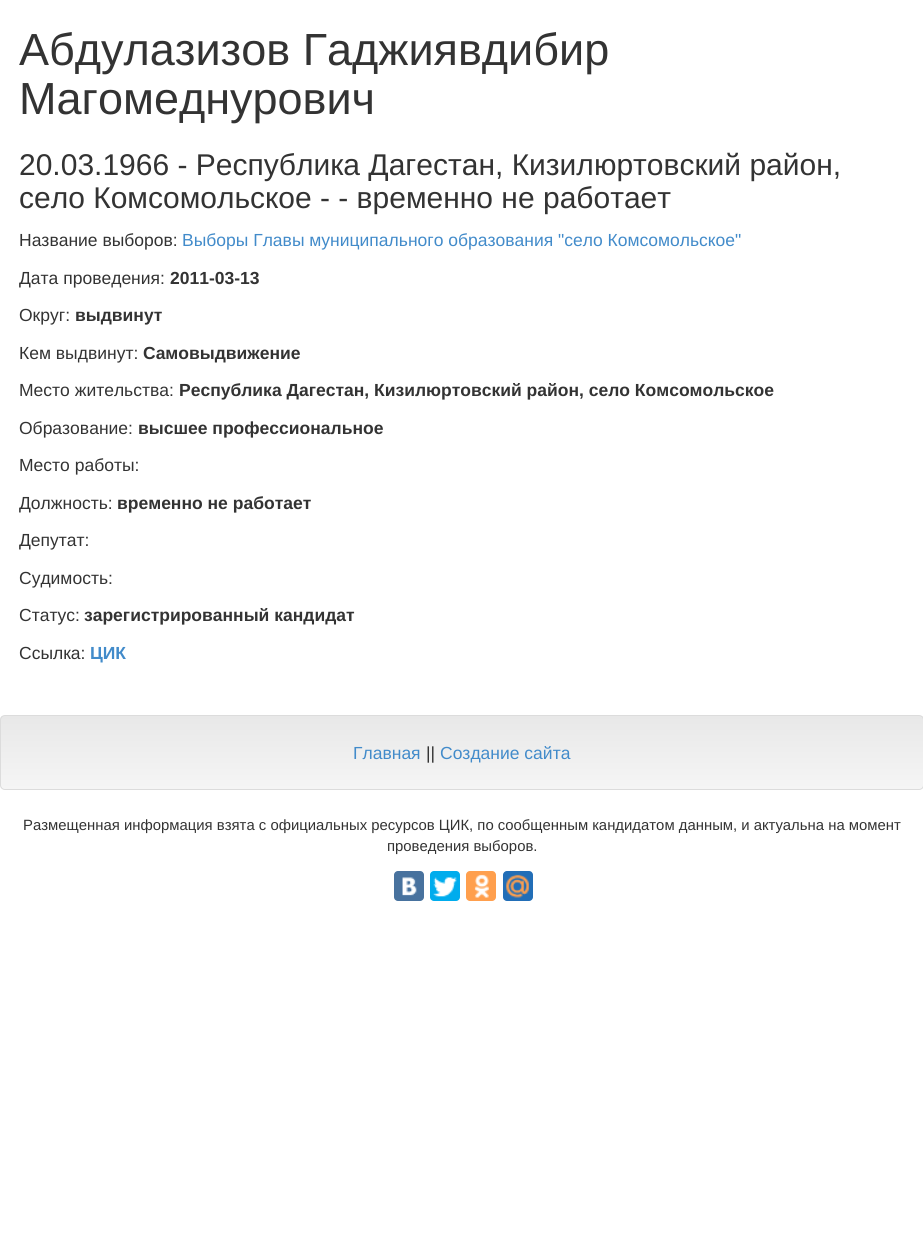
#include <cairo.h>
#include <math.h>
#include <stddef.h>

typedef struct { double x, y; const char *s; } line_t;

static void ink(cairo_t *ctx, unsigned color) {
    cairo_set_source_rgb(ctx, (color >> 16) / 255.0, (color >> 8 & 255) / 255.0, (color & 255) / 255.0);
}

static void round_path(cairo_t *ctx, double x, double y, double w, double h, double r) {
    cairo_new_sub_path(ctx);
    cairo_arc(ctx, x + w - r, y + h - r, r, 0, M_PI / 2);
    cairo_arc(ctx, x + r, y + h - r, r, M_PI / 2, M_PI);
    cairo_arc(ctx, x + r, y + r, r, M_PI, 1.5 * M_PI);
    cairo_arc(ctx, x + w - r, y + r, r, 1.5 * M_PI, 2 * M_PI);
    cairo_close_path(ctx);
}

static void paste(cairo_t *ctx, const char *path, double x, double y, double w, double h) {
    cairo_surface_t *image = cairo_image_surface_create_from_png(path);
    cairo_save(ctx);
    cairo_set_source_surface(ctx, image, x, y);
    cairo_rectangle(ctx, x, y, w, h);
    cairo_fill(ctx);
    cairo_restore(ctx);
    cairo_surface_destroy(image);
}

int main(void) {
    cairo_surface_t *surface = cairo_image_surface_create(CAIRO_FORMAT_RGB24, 923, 1253);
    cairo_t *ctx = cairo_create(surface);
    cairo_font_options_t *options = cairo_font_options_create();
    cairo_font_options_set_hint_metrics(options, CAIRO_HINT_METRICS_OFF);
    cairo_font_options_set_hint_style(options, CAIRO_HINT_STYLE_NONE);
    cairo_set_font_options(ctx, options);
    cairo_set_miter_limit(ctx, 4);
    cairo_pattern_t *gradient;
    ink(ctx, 0xFFFFFF);
    cairo_paint(ctx);
    cairo_select_font_face(ctx, "Liberation Sans", CAIRO_FONT_SLANT_NORMAL, CAIRO_FONT_WEIGHT_NORMAL);
    cairo_set_font_size(ctx, 45);
    ink(ctx, 0x333333);
    cairo_move_to(ctx, 19, 65);
    cairo_show_text(ctx, "Абдулазизов Гаджиявдибир");
    cairo_move_to(ctx, 19, 114);
    cairo_show_text(ctx, "Магомеднурович");
    cairo_set_font_size(ctx, 30);
    cairo_move_to(ctx, 19, 175);
    cairo_show_text(ctx, "20.03.1966 - Республика Дагестан, Кизилюртовский район,");
    cairo_move_to(ctx, 19, 208);
    cairo_show_text(ctx, "село Комсомольское - - временно не работает");
    cairo_set_font_size(ctx, 17.5);
    cairo_move_to(ctx, 19, 246);
    cairo_show_text(ctx, "Название выборов:");
    ink(ctx, 0x428BCA);
    cairo_move_to(ctx, 182, 246);
    cairo_show_text(ctx, "Выборы Главы муниципального образования \"село Комсомольское\"");
    ink(ctx, 0x333333);
    cairo_move_to(ctx, 19, 284);
    cairo_show_text(ctx, "Дата проведения:");
    cairo_select_font_face(ctx, "Liberation Sans", CAIRO_FONT_SLANT_NORMAL, CAIRO_FONT_WEIGHT_BOLD);
    cairo_move_to(ctx, 170, 284);
    cairo_show_text(ctx, "2011-03-13");
    cairo_select_font_face(ctx, "Liberation Sans", CAIRO_FONT_SLANT_NORMAL, CAIRO_FONT_WEIGHT_NORMAL);
    cairo_move_to(ctx, 19, 321);
    cairo_show_text(ctx, "Округ:");
    cairo_select_font_face(ctx, "Liberation Sans", CAIRO_FONT_SLANT_NORMAL, CAIRO_FONT_WEIGHT_BOLD);
    cairo_move_to(ctx, 75, 321);
    cairo_show_text(ctx, "выдвинут");
    cairo_select_font_face(ctx, "Liberation Sans", CAIRO_FONT_SLANT_NORMAL, CAIRO_FONT_WEIGHT_NORMAL);
    cairo_move_to(ctx, 19, 359);
    cairo_show_text(ctx, "Кем выдвинут:");
    cairo_select_font_face(ctx, "Liberation Sans", CAIRO_FONT_SLANT_NORMAL, CAIRO_FONT_WEIGHT_BOLD);
    cairo_move_to(ctx, 143, 359);
    cairo_show_text(ctx, "Самовыдвижение");
    cairo_select_font_face(ctx, "Liberation Sans", CAIRO_FONT_SLANT_NORMAL, CAIRO_FONT_WEIGHT_NORMAL);
    cairo_move_to(ctx, 19, 396);
    cairo_show_text(ctx, "Место жительства:");
    cairo_select_font_face(ctx, "Liberation Sans", CAIRO_FONT_SLANT_NORMAL, CAIRO_FONT_WEIGHT_BOLD);
    cairo_move_to(ctx, 179, 396);
    cairo_show_text(ctx, "Республика Дагестан, Кизилюртовский район, село Комсомольское");
    cairo_select_font_face(ctx, "Liberation Sans", CAIRO_FONT_SLANT_NORMAL, CAIRO_FONT_WEIGHT_NORMAL);
    cairo_move_to(ctx, 19, 434);
    cairo_show_text(ctx, "Образование:");
    cairo_select_font_face(ctx, "Liberation Sans", CAIRO_FONT_SLANT_NORMAL, CAIRO_FONT_WEIGHT_BOLD);
    cairo_move_to(ctx, 138, 434);
    cairo_show_text(ctx, "высшее профессиональное");
    cairo_select_font_face(ctx, "Liberation Sans", CAIRO_FONT_SLANT_NORMAL, CAIRO_FONT_WEIGHT_NORMAL);
    cairo_move_to(ctx, 19, 471);
    cairo_show_text(ctx, "Место работы:");
    cairo_move_to(ctx, 19, 509);
    cairo_show_text(ctx, "Должность:");
    cairo_select_font_face(ctx, "Liberation Sans", CAIRO_FONT_SLANT_NORMAL, CAIRO_FONT_WEIGHT_BOLD);
    cairo_move_to(ctx, 117, 509);
    cairo_show_text(ctx, "временно не работает");
    cairo_select_font_face(ctx, "Liberation Sans", CAIRO_FONT_SLANT_NORMAL, CAIRO_FONT_WEIGHT_NORMAL);
    {
        static const line_t items[] = {
            {19, 546, "Депутат:"},
            {19, 584, "Судимость:"},
            {19, 621, "Статус:"},
        };
        for (size_t i = 0; i < sizeof items / sizeof *items; i++) {
            cairo_move_to(ctx, items[i].x, items[i].y);
            cairo_show_text(ctx, items[i].s);
        }
    }
    cairo_select_font_face(ctx, "Liberation Sans", CAIRO_FONT_SLANT_NORMAL, CAIRO_FONT_WEIGHT_BOLD);
    cairo_move_to(ctx, 84, 621);
    cairo_show_text(ctx, "зарегистрированный кандидат");
    cairo_select_font_face(ctx, "Liberation Sans", CAIRO_FONT_SLANT_NORMAL, CAIRO_FONT_WEIGHT_NORMAL);
    cairo_move_to(ctx, 19, 659);
    cairo_show_text(ctx, "Ссылка:");
    cairo_select_font_face(ctx, "Liberation Sans", CAIRO_FONT_SLANT_NORMAL, CAIRO_FONT_WEIGHT_BOLD);
    ink(ctx, 0x428BCA);
    cairo_move_to(ctx, 90, 659);
    cairo_show_text(ctx, "ЦИК");
    cairo_save(ctx);
    round_path(ctx, 0, 715, 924, 75, 5);
    cairo_clip(ctx);
    gradient = cairo_pattern_create_linear(462, 716, 462, 789);
    cairo_pattern_add_color_stop_rgba(gradient, 0, 0.91, 0.91, 0.91, 1);
    cairo_pattern_add_color_stop_rgba(gradient, 1, 0.961, 0.961, 0.961, 1);
    cairo_set_source(ctx, gradient);
    cairo_pattern_destroy(gradient);
    cairo_rectangle(ctx, 0, 716, 923, 73);
    cairo_fill(ctx);
    cairo_restore(ctx);
    round_path(ctx, 0.5, 715.5, 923, 74, 4.5);
    ink(ctx, 0xDCDCDC);
    cairo_set_line_width(ctx, 1);
    cairo_stroke(ctx);
    cairo_select_font_face(ctx, "Liberation Sans", CAIRO_FONT_SLANT_NORMAL, CAIRO_FONT_WEIGHT_NORMAL);
    ink(ctx, 0x428BCA);
    cairo_move_to(ctx, 353, 759);
    cairo_show_text(ctx, "Главная");
    ink(ctx, 0x333333);
    cairo_move_to(ctx, 426, 759);
    cairo_show_text(ctx, "||");
    ink(ctx, 0x428BCA);
    cairo_move_to(ctx, 440, 759);
    cairo_show_text(ctx, "Создание сайта");
    cairo_set_font_size(ctx, 14.88);
    ink(ctx, 0x333333);
    cairo_move_to(ctx, 23, 830);
    cairo_show_text(ctx, "Размещенная информация взята с официальных ресурсов ЦИК, по сообщенным кандидатом данным, и актуальна на момент");
    cairo_move_to(ctx, 387, 851);
    cairo_show_text(ctx, "проведения выборов.");
    ink(ctx, 0x48729E);
    round_path(ctx, 394, 871, 30, 30, 4);
    cairo_fill(ctx);
    paste(ctx, "media/1.png", 402, 877, 15, 19);
    ink(ctx, 0x00ACED);
    round_path(ctx, 430, 871, 30, 30, 4);
    cairo_fill(ctx);
    paste(ctx, "media/2.png", 433, 877, 24, 20);
    ink(ctx, 0xFF9F4D);
    round_path(ctx, 466, 871, 30, 30, 4);
    cairo_fill(ctx);
    paste(ctx, "media/3.png", 474, 874, 15, 24);
    ink(ctx, 0x226EB7);
    round_path(ctx, 503, 871, 30, 30, 4);
    cairo_fill(ctx);
    paste(ctx, "media/4.png", 506, 874, 23, 24);
    cairo_surface_write_to_png(surface, "image.png");
    cairo_font_options_destroy(options);
    cairo_destroy(ctx);
    cairo_surface_destroy(surface);
    return 0;
}
